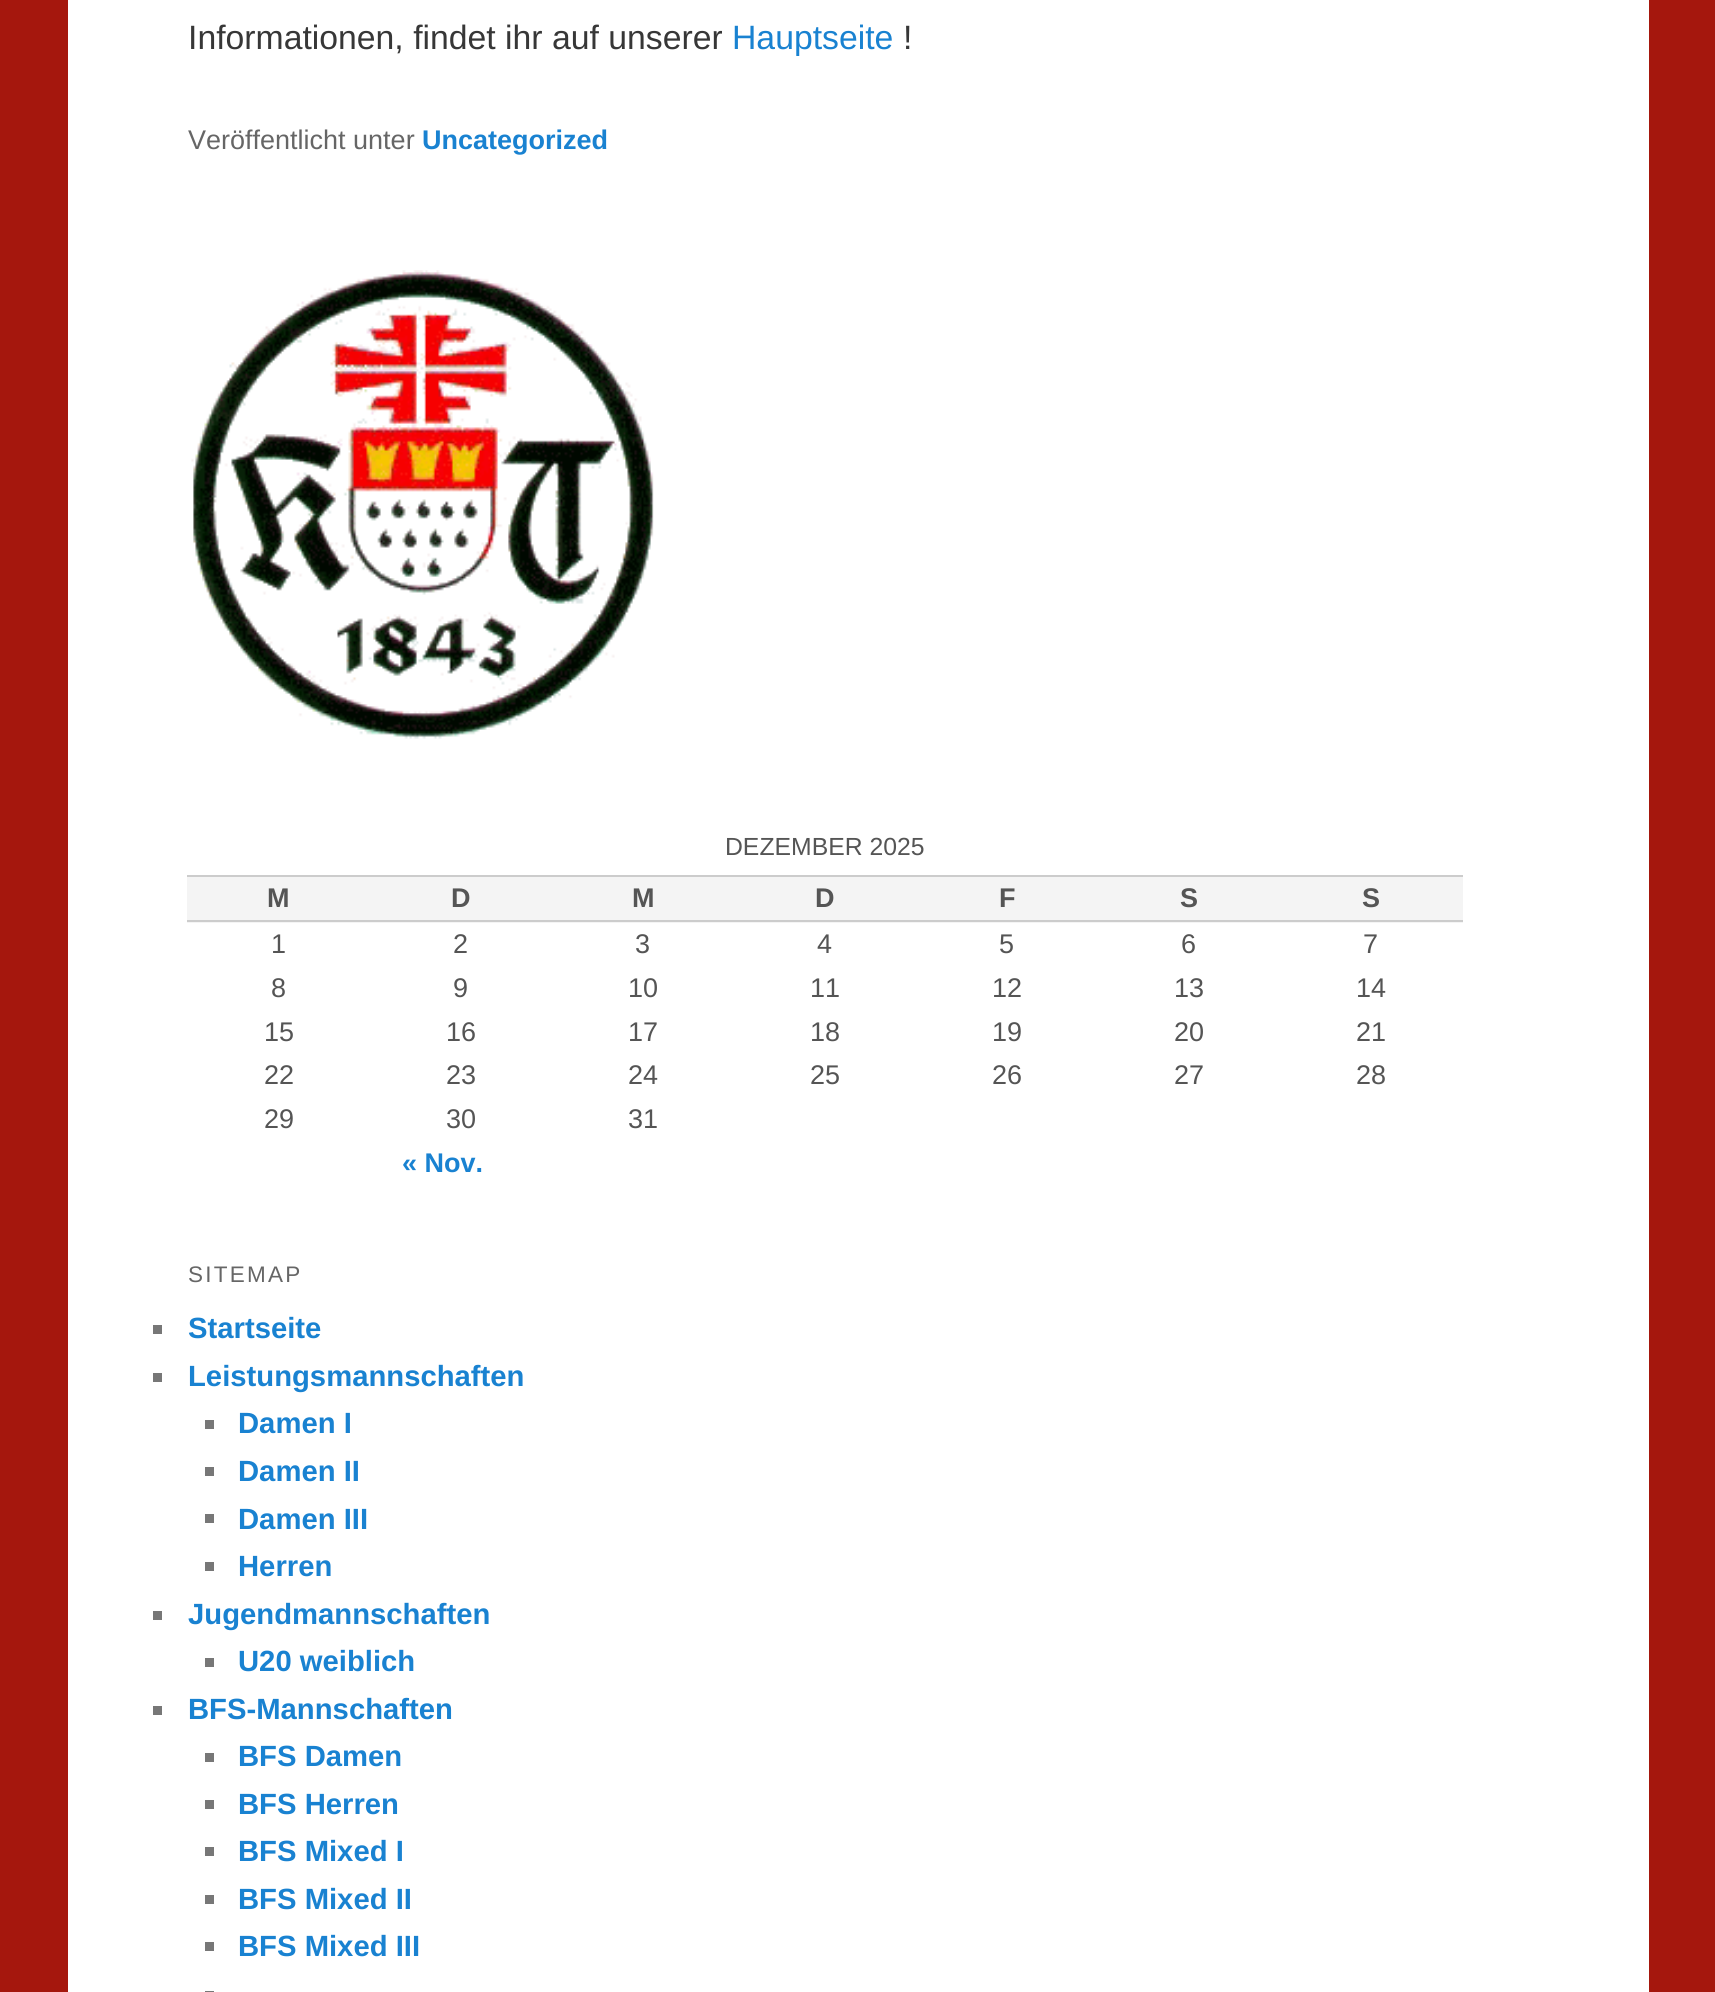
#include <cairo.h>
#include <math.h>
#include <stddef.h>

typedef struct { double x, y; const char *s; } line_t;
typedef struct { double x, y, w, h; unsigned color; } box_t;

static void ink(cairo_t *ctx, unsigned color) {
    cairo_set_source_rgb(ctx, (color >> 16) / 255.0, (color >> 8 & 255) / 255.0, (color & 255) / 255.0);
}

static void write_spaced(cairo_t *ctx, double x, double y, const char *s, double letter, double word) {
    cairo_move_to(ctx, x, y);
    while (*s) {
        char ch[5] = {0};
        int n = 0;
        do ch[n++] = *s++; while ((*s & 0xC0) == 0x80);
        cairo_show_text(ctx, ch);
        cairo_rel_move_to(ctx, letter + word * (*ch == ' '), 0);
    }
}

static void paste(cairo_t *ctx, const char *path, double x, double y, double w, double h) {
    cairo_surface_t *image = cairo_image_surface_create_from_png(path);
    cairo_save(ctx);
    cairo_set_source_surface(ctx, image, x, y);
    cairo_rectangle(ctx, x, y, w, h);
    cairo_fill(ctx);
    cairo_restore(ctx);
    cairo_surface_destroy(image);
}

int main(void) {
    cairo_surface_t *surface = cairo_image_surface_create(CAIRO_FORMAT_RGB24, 1715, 1992);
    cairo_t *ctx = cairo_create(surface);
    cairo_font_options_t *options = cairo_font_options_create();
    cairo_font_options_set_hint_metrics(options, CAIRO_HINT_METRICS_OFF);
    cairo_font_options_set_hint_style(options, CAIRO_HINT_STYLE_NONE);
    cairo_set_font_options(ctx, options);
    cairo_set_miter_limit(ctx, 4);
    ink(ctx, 0xA5170D);
    cairo_paint(ctx);
    ink(ctx, 0xFFFFFF);
    cairo_rectangle(ctx, 68, 0, 1581, 1992);
    cairo_fill(ctx);
    cairo_select_font_face(ctx, "Liberation Sans", CAIRO_FONT_SLANT_NORMAL, CAIRO_FONT_WEIGHT_NORMAL);
    cairo_set_font_size(ctx, 33.75);
    ink(ctx, 0x373737);
    cairo_move_to(ctx, 188, 49);
    cairo_show_text(ctx, "Informationen, findet ihr auf unserer");
    ink(ctx, 0x1982D1);
    cairo_move_to(ctx, 732, 49);
    cairo_show_text(ctx, "Hauptseite");
    ink(ctx, 0x373737);
    cairo_move_to(ctx, 903, 49);
    cairo_show_text(ctx, "!");
    cairo_set_font_size(ctx, 27);
    ink(ctx, 0x666666);
    cairo_move_to(ctx, 188, 149);
    cairo_show_text(ctx, "Veröffentlicht unter");
    cairo_select_font_face(ctx, "Liberation Sans", CAIRO_FONT_SLANT_NORMAL, CAIRO_FONT_WEIGHT_BOLD);
    ink(ctx, 0x1982D1);
    cairo_move_to(ctx, 422, 149);
    cairo_show_text(ctx, "Uncategorized");
    paste(ctx, "media/1.png", 191, 270, 463, 469);
    cairo_select_font_face(ctx, "Liberation Sans", CAIRO_FONT_SLANT_NORMAL, CAIRO_FONT_WEIGHT_NORMAL);
    cairo_set_font_size(ctx, 24.75);
    ink(ctx, 0x555555);
    cairo_move_to(ctx, 725, 855);
    cairo_show_text(ctx, "DEZEMBER 2025");
    {
        static const box_t items[] = {
            {187, 877, 1276, 46, 0xF4F4F4},
            {187, 875, 1276, 2, 0xCCCCCC},
            {187, 920, 1276, 2, 0xCCCCCC},
        };
        for (size_t i = 0; i < sizeof items / sizeof *items; i++) {
            ink(ctx, items[i].color);
            cairo_rectangle(ctx, items[i].x, items[i].y, items[i].w, items[i].h);
            cairo_fill(ctx);
        }
    }
    cairo_select_font_face(ctx, "Liberation Sans", CAIRO_FONT_SLANT_NORMAL, CAIRO_FONT_WEIGHT_BOLD);
    cairo_set_font_size(ctx, 27);
    ink(ctx, 0x555555);
    {
        static const line_t items[] = {
            {267, 907, "M"},
            {451, 907, "D"},
            {632, 907, "M"},
            {815, 907, "D"},
            {999, 907, "F"},
            {1180, 907, "S"},
            {1362, 907, "S"},
        };
        for (size_t i = 0; i < sizeof items / sizeof *items; i++) {
            cairo_move_to(ctx, items[i].x, items[i].y);
            cairo_show_text(ctx, items[i].s);
        }
    }
    cairo_select_font_face(ctx, "Liberation Sans", CAIRO_FONT_SLANT_NORMAL, CAIRO_FONT_WEIGHT_NORMAL);
    {
        static const line_t items[] = {
            {271, 953, "1"},
            {453, 953, "2"},
            {635, 953, "3"},
            {817, 953, "4"},
            {999, 953, "5"},
            {1181, 953, "6"},
            {1363, 953, "7"},
            {271, 997, "8"},
            {453, 997, "9"},
            {628, 997, "10"},
            {810, 997, "11"},
            {992, 997, "12"},
            {1174, 997, "13"},
            {1356, 997, "14"},
            {264, 1041, "15"},
            {446, 1041, "16"},
            {628, 1041, "17"},
            {810, 1041, "18"},
            {992, 1041, "19"},
            {1174, 1041, "20"},
            {1356, 1041, "21"},
            {264, 1084, "22"},
            {446, 1084, "23"},
            {628, 1084, "24"},
            {810, 1084, "25"},
            {992, 1084, "26"},
            {1174, 1084, "27"},
            {1356, 1084, "28"},
            {264, 1128, "29"},
            {446, 1128, "30"},
            {628, 1128, "31"},
        };
        for (size_t i = 0; i < sizeof items / sizeof *items; i++) {
            cairo_move_to(ctx, items[i].x, items[i].y);
            cairo_show_text(ctx, items[i].s);
        }
    }
    cairo_select_font_face(ctx, "Liberation Sans", CAIRO_FONT_SLANT_NORMAL, CAIRO_FONT_WEIGHT_BOLD);
    ink(ctx, 0x1982D1);
    cairo_move_to(ctx, 402, 1172);
    cairo_show_text(ctx, "« Nov.");
    cairo_select_font_face(ctx, "Liberation Sans", CAIRO_FONT_SLANT_NORMAL, CAIRO_FONT_WEIGHT_NORMAL);
    cairo_set_font_size(ctx, 22.5);
    ink(ctx, 0x666666);
    write_spaced(ctx, 188, 1282, "SITEMAP", 2.25, 0);
    ink(ctx, 0x777777);
    cairo_rectangle(ctx, 153, 1325, 9, 9);
    cairo_fill(ctx);
    cairo_select_font_face(ctx, "Liberation Sans", CAIRO_FONT_SLANT_NORMAL, CAIRO_FONT_WEIGHT_BOLD);
    cairo_set_font_size(ctx, 29.25);
    ink(ctx, 0x1982D1);
    cairo_move_to(ctx, 188, 1338);
    cairo_show_text(ctx, "Startseite");
    ink(ctx, 0x777777);
    cairo_rectangle(ctx, 153, 1373, 9, 9);
    cairo_fill(ctx);
    ink(ctx, 0x1982D1);
    cairo_move_to(ctx, 188, 1386);
    cairo_show_text(ctx, "Leistungsmannschaften");
    ink(ctx, 0x777777);
    cairo_rectangle(ctx, 205, 1420, 9, 9);
    cairo_fill(ctx);
    ink(ctx, 0x1982D1);
    cairo_move_to(ctx, 238, 1433);
    cairo_show_text(ctx, "Damen I");
    ink(ctx, 0x777777);
    cairo_rectangle(ctx, 205, 1467, 9, 9);
    cairo_fill(ctx);
    ink(ctx, 0x1982D1);
    cairo_move_to(ctx, 238, 1481);
    cairo_show_text(ctx, "Damen II");
    ink(ctx, 0x777777);
    cairo_rectangle(ctx, 205, 1514, 9, 9);
    cairo_fill(ctx);
    ink(ctx, 0x1982D1);
    cairo_move_to(ctx, 238, 1529);
    cairo_show_text(ctx, "Damen III");
    ink(ctx, 0x777777);
    cairo_rectangle(ctx, 205, 1562, 9, 9);
    cairo_fill(ctx);
    ink(ctx, 0x1982D1);
    cairo_move_to(ctx, 238, 1576);
    cairo_show_text(ctx, "Herren");
    ink(ctx, 0x777777);
    cairo_rectangle(ctx, 153, 1611, 9, 9);
    cairo_fill(ctx);
    ink(ctx, 0x1982D1);
    cairo_move_to(ctx, 188, 1624);
    cairo_show_text(ctx, "Jugendmannschaften");
    ink(ctx, 0x777777);
    cairo_rectangle(ctx, 205, 1658, 9, 9);
    cairo_fill(ctx);
    ink(ctx, 0x1982D1);
    cairo_move_to(ctx, 238, 1671);
    cairo_show_text(ctx, "U20 weiblich");
    ink(ctx, 0x777777);
    cairo_rectangle(ctx, 153, 1706, 9, 9);
    cairo_fill(ctx);
    ink(ctx, 0x1982D1);
    cairo_move_to(ctx, 188, 1719);
    cairo_show_text(ctx, "BFS-Mannschaften");
    ink(ctx, 0x777777);
    cairo_rectangle(ctx, 205, 1753, 9, 9);
    cairo_fill(ctx);
    ink(ctx, 0x1982D1);
    cairo_move_to(ctx, 238, 1766);
    cairo_show_text(ctx, "BFS Damen");
    ink(ctx, 0x777777);
    cairo_rectangle(ctx, 205, 1800, 9, 9);
    cairo_fill(ctx);
    ink(ctx, 0x1982D1);
    cairo_move_to(ctx, 238, 1814);
    cairo_show_text(ctx, "BFS Herren");
    ink(ctx, 0x777777);
    cairo_rectangle(ctx, 205, 1847, 9, 9);
    cairo_fill(ctx);
    ink(ctx, 0x1982D1);
    cairo_move_to(ctx, 238, 1861);
    cairo_show_text(ctx, "BFS Mixed I");
    ink(ctx, 0x777777);
    cairo_rectangle(ctx, 205, 1895, 9, 9);
    cairo_fill(ctx);
    ink(ctx, 0x1982D1);
    cairo_move_to(ctx, 238, 1909);
    cairo_show_text(ctx, "BFS Mixed II");
    ink(ctx, 0x777777);
    cairo_rectangle(ctx, 205, 1942, 9, 9);
    cairo_fill(ctx);
    ink(ctx, 0x1982D1);
    cairo_move_to(ctx, 238, 1956);
    cairo_show_text(ctx, "BFS Mixed III");
    ink(ctx, 0x777777);
    cairo_rectangle(ctx, 205, 1991, 9, 1);
    cairo_fill(ctx);
    cairo_surface_write_to_png(surface, "image.png");
    cairo_font_options_destroy(options);
    cairo_destroy(ctx);
    cairo_surface_destroy(surface);
    return 0;
}
